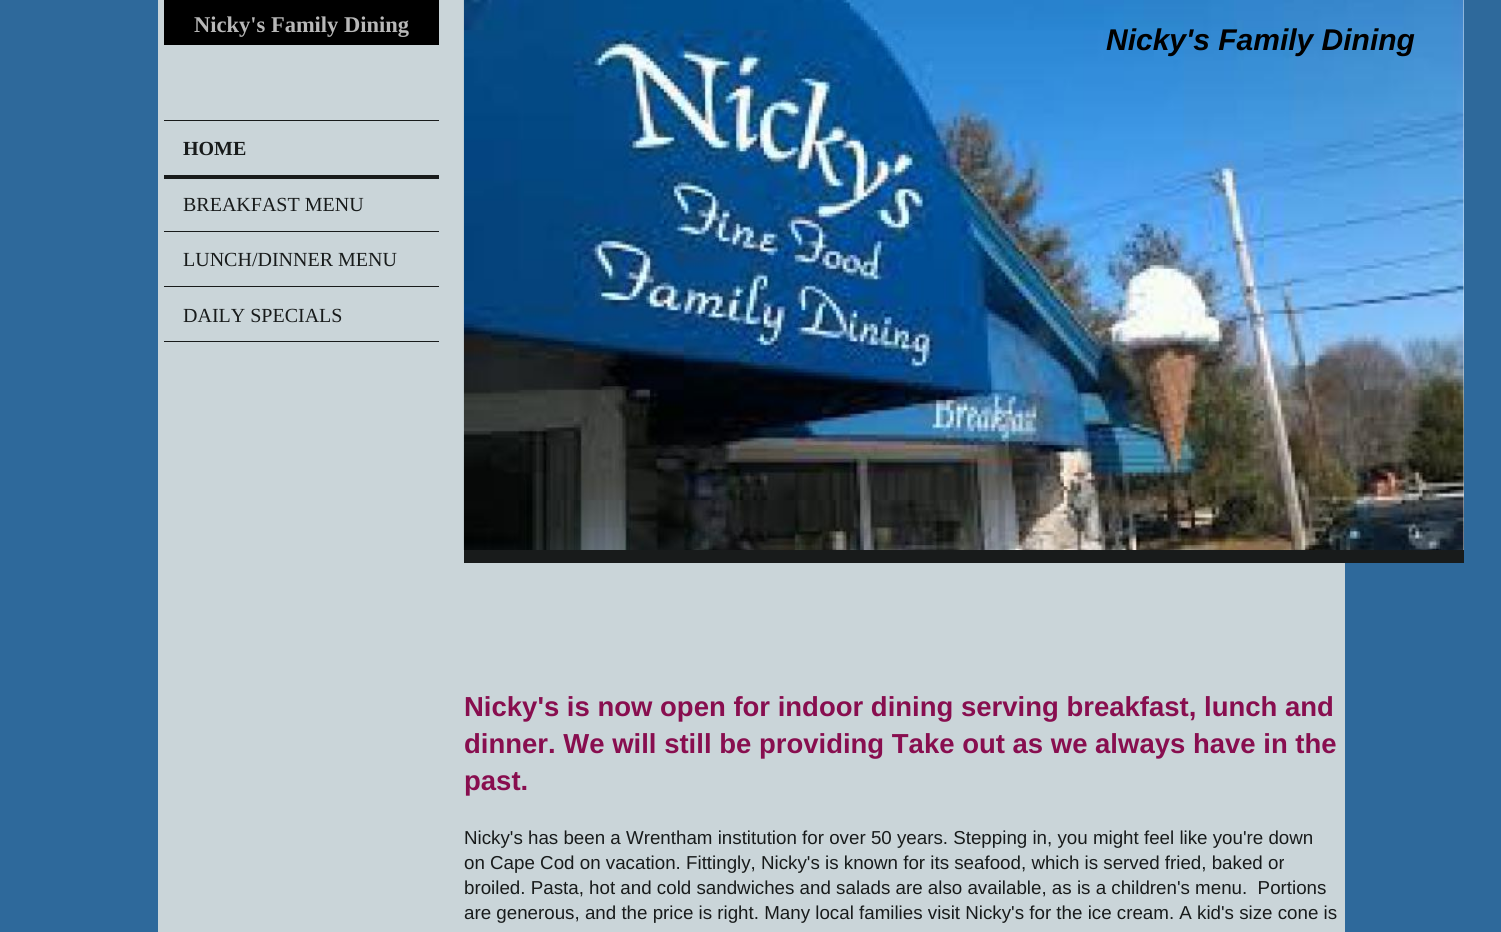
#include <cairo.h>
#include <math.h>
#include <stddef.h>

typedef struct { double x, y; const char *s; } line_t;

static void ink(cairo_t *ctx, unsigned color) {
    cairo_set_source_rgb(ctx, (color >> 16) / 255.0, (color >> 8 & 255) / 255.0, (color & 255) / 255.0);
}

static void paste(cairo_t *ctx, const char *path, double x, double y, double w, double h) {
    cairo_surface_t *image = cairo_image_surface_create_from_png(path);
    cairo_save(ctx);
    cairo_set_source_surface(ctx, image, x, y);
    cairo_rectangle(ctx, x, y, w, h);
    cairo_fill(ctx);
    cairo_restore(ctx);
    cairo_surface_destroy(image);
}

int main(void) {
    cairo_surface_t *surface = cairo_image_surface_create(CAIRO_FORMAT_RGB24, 1501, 932);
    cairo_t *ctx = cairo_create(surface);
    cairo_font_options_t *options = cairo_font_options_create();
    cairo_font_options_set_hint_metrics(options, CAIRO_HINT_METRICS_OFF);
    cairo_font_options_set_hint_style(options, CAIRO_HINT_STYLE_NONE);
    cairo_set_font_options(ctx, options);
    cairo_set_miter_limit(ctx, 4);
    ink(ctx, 0x2E699B);
    cairo_paint(ctx);
    ink(ctx, 0xCAD5D9);
    cairo_rectangle(ctx, 158, 0, 1187, 932);
    cairo_fill(ctx);
    ink(ctx, 0x000000);
    cairo_rectangle(ctx, 164, 0, 275, 45);
    cairo_fill(ctx);
    cairo_select_font_face(ctx, "Liberation Serif", CAIRO_FONT_SLANT_NORMAL, CAIRO_FONT_WEIGHT_BOLD);
    cairo_set_font_size(ctx, 22.5);
    ink(ctx, 0xB8B8B8);
    cairo_move_to(ctx, 194, 32);
    cairo_show_text(ctx, "Nicky's Family Dining");
    ink(ctx, 0x181B1B);
    cairo_rectangle(ctx, 164, 120, 275, 1);
    cairo_fill(ctx);
    cairo_rectangle(ctx, 164, 175, 275, 4);
    cairo_fill(ctx);
    cairo_set_font_size(ctx, 20);
    cairo_move_to(ctx, 183, 155);
    cairo_show_text(ctx, "HOME");
    cairo_rectangle(ctx, 164, 231, 275, 1);
    cairo_fill(ctx);
    cairo_select_font_face(ctx, "Liberation Serif", CAIRO_FONT_SLANT_NORMAL, CAIRO_FONT_WEIGHT_NORMAL);
    cairo_move_to(ctx, 183, 211);
    cairo_show_text(ctx, "BREAKFAST MENU");
    cairo_rectangle(ctx, 164, 286, 275, 1);
    cairo_fill(ctx);
    cairo_move_to(ctx, 183, 266);
    cairo_show_text(ctx, "LUNCH/DINNER MENU");
    cairo_rectangle(ctx, 164, 341, 275, 1);
    cairo_fill(ctx);
    cairo_move_to(ctx, 183, 322);
    cairo_show_text(ctx, "DAILY SPECIALS");
    cairo_rectangle(ctx, 464, 550, 1000, 13);
    cairo_fill(ctx);
    ink(ctx, 0xEEEEEE);
    cairo_rectangle(ctx, 1463, 0, 1, 550);
    cairo_fill(ctx);
    paste(ctx, "media/1.png", 463, 0, 1001, 550);
    cairo_select_font_face(ctx, "Liberation Sans", CAIRO_FONT_SLANT_ITALIC, CAIRO_FONT_WEIGHT_BOLD);
    cairo_set_font_size(ctx, 30);
    ink(ctx, 0x000000);
    cairo_move_to(ctx, 1106, 50);
    cairo_show_text(ctx, "Nicky's Family Dining");
    cairo_select_font_face(ctx, "Liberation Sans", CAIRO_FONT_SLANT_NORMAL, CAIRO_FONT_WEIGHT_BOLD);
    cairo_set_font_size(ctx, 27.5);
    ink(ctx, 0x880E4F);
    {
        static const line_t items[] = {
            {464, 716, "Nicky's is now open for indoor dining serving breakfast, lunch and"},
            {464, 753, "dinner. We will still be providing Take out as we always have in the"},
            {464, 790, "past."},
        };
        for (size_t i = 0; i < sizeof items / sizeof *items; i++) {
            cairo_move_to(ctx, items[i].x, items[i].y);
            cairo_show_text(ctx, items[i].s);
        }
    }
    cairo_select_font_face(ctx, "Liberation Sans", CAIRO_FONT_SLANT_NORMAL, CAIRO_FONT_WEIGHT_NORMAL);
    cairo_set_font_size(ctx, 18.75);
    ink(ctx, 0x181B1B);
    {
        static const line_t items[] = {
            {464, 844, "Nicky's has been a Wrentham institution for over 50 years. Stepping in, you might feel like you're down"},
            {464, 869, "on Cape Cod on vacation. Fittingly, Nicky's is known for its seafood, which is served fried, baked or"},
            {464, 894, "broiled. Pasta, hot and cold sandwiches and salads are also available, as is a children's menu.  Portions"},
            {464, 919, "are generous, and the price is right. Many local families visit Nicky's for the ice cream. A kid's size cone is"},
        };
        for (size_t i = 0; i < sizeof items / sizeof *items; i++) {
            cairo_move_to(ctx, items[i].x, items[i].y);
            cairo_show_text(ctx, items[i].s);
        }
    }
    cairo_surface_write_to_png(surface, "image.png");
    cairo_font_options_destroy(options);
    cairo_destroy(ctx);
    cairo_surface_destroy(surface);
    return 0;
}
